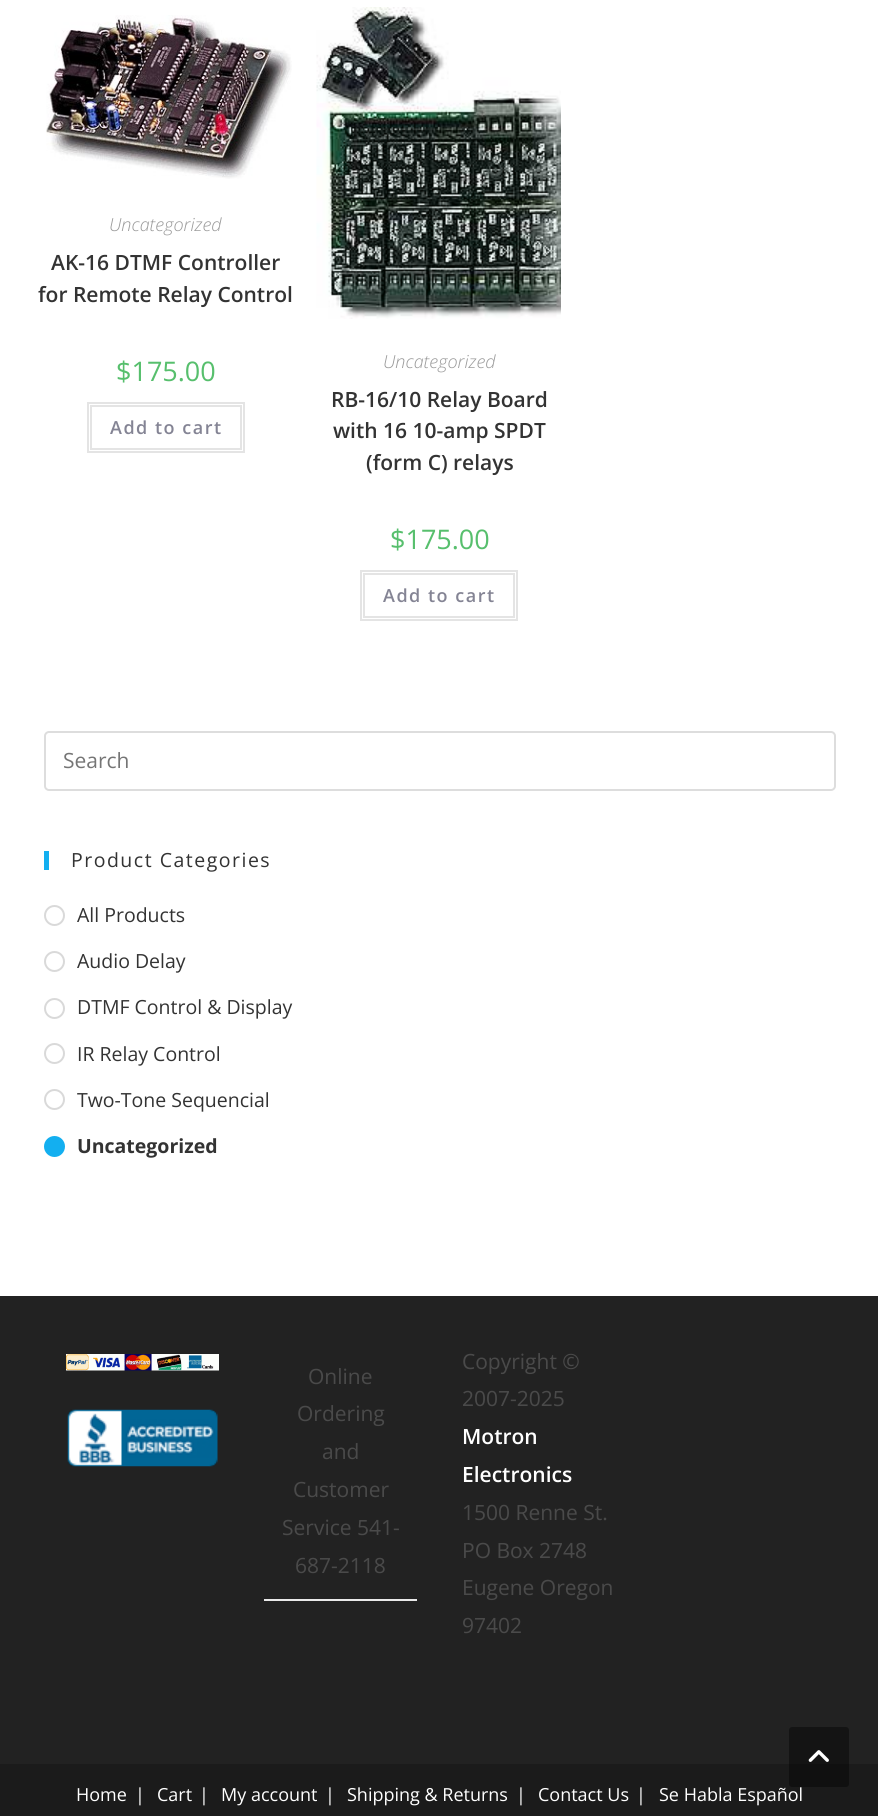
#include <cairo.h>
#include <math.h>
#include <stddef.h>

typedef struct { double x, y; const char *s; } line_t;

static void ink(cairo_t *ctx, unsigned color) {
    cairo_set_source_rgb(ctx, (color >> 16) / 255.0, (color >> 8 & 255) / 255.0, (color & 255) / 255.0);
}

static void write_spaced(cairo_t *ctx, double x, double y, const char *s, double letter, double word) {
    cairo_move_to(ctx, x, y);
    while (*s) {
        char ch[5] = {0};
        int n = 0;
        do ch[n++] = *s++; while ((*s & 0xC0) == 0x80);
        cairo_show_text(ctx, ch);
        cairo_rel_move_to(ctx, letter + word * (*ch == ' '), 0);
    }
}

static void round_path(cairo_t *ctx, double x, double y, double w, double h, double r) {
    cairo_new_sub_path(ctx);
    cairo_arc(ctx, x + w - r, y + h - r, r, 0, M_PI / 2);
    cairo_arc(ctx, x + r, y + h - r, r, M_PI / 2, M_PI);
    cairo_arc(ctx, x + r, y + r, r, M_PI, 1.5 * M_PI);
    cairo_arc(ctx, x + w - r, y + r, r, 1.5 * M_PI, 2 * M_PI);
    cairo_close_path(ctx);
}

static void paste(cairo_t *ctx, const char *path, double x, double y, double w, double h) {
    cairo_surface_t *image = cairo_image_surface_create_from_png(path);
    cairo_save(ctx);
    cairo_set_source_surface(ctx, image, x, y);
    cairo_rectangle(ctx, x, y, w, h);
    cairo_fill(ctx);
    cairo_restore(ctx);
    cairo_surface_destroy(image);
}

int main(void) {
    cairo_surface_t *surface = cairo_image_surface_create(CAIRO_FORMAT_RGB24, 878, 1816);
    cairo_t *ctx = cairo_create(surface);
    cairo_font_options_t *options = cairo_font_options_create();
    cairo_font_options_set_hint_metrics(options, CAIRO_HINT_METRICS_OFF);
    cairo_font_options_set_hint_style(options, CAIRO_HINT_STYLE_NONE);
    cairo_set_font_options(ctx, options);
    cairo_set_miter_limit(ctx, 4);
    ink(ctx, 0xFFFFFF);
    cairo_paint(ctx);
    paste(ctx, "media/1.png", 46, 15, 246, 164);
    cairo_select_font_face(ctx, "Open Sans Light", CAIRO_FONT_SLANT_ITALIC, CAIRO_FONT_WEIGHT_NORMAL);
    cairo_set_font_size(ctx, 18);
    ink(ctx, 0x999999);
    cairo_move_to(ctx, 109, 231);
    cairo_show_text(ctx, "Uncategorized");
    cairo_select_font_face(ctx, "Open Sans SemiBold", CAIRO_FONT_SLANT_NORMAL, CAIRO_FONT_WEIGHT_NORMAL);
    cairo_set_font_size(ctx, 21);
    ink(ctx, 0x333333);
    cairo_move_to(ctx, 51, 270);
    cairo_show_text(ctx, "AK-16 DTMF Controller");
    cairo_move_to(ctx, 38, 302);
    cairo_show_text(ctx, "for Remote Relay Control");
    cairo_select_font_face(ctx, "Open Sans", CAIRO_FONT_SLANT_NORMAL, CAIRO_FONT_WEIGHT_NORMAL);
    cairo_set_font_size(ctx, 27);
    ink(ctx, 0x57BF6D);
    cairo_move_to(ctx, 116, 381);
    cairo_show_text(ctx, "$175.00");
    cairo_rectangle(ctx, 88, 403, 156, 49);
    ink(ctx, 0xE4E4E4);
    cairo_stroke(ctx);
    cairo_rectangle(ctx, 91, 406, 150, 43);
    cairo_stroke(ctx);
    cairo_select_font_face(ctx, "Open Sans SemiBold", CAIRO_FONT_SLANT_NORMAL, CAIRO_FONT_WEIGHT_NORMAL);
    cairo_set_font_size(ctx, 18);
    ink(ctx, 0x848494);
    write_spaced(ctx, 110, 434, "Add to cart", 1.5, 0);
    paste(ctx, "media/2.png", 316, 7, 245, 312);
    cairo_select_font_face(ctx, "Open Sans Light", CAIRO_FONT_SLANT_ITALIC, CAIRO_FONT_WEIGHT_NORMAL);
    ink(ctx, 0x999999);
    cairo_move_to(ctx, 383, 368);
    cairo_show_text(ctx, "Uncategorized");
    cairo_select_font_face(ctx, "Open Sans SemiBold", CAIRO_FONT_SLANT_NORMAL, CAIRO_FONT_WEIGHT_NORMAL);
    cairo_set_font_size(ctx, 21);
    ink(ctx, 0x333333);
    {
        static const line_t items[] = {
            {331, 407, "RB-16/10 Relay Board"},
            {333, 438, "with 16 10-amp SPDT"},
            {366, 470, "(form C) relays"},
        };
        for (size_t i = 0; i < sizeof items / sizeof *items; i++) {
            cairo_move_to(ctx, items[i].x, items[i].y);
            cairo_show_text(ctx, items[i].s);
        }
    }
    cairo_select_font_face(ctx, "Open Sans", CAIRO_FONT_SLANT_NORMAL, CAIRO_FONT_WEIGHT_NORMAL);
    cairo_set_font_size(ctx, 27);
    ink(ctx, 0x57BF6D);
    cairo_move_to(ctx, 390, 549);
    cairo_show_text(ctx, "$175.00");
    cairo_rectangle(ctx, 361, 571, 156, 49);
    ink(ctx, 0xE4E4E4);
    cairo_stroke(ctx);
    cairo_rectangle(ctx, 364, 574, 150, 43);
    cairo_stroke(ctx);
    cairo_select_font_face(ctx, "Open Sans SemiBold", CAIRO_FONT_SLANT_NORMAL, CAIRO_FONT_WEIGHT_NORMAL);
    cairo_set_font_size(ctx, 18);
    ink(ctx, 0x848494);
    write_spaced(ctx, 383, 602, "Add to cart", 1.5, 0);
    round_path(ctx, 45, 732, 790, 58, 4);
    ink(ctx, 0xDDDDDD);
    cairo_stroke(ctx);
    cairo_select_font_face(ctx, "Open Sans", CAIRO_FONT_SLANT_NORMAL, CAIRO_FONT_WEIGHT_NORMAL);
    cairo_set_font_size(ctx, 21);
    ink(ctx, 0x757575);
    cairo_move_to(ctx, 63, 768);
    cairo_show_text(ctx, "Search");
    ink(ctx, 0x13AFF0);
    cairo_rectangle(ctx, 44, 851, 5, 19);
    cairo_fill(ctx);
    cairo_set_font_size(ctx, 19.5);
    ink(ctx, 0x333333);
    write_spaced(ctx, 71, 867, "Product Categories", 1.5, 0);
    cairo_new_path(ctx);
    cairo_arc(ctx, 54.5, 915.5, 9.5, 0, 2 * M_PI);
    ink(ctx, 0xD9D9D9);
    cairo_stroke(ctx);
    ink(ctx, 0x333333);
    cairo_move_to(ctx, 77, 922);
    cairo_show_text(ctx, "All Products");
    cairo_new_path(ctx);
    cairo_arc(ctx, 54.5, 961.5, 9.5, 0, 2 * M_PI);
    ink(ctx, 0xD9D9D9);
    cairo_stroke(ctx);
    ink(ctx, 0x333333);
    cairo_move_to(ctx, 77, 968);
    cairo_show_text(ctx, "Audio Delay");
    cairo_new_path(ctx);
    cairo_arc(ctx, 54.5, 1008.5, 9.5, 0, 2 * M_PI);
    ink(ctx, 0xD9D9D9);
    cairo_stroke(ctx);
    ink(ctx, 0x333333);
    cairo_move_to(ctx, 77, 1014);
    cairo_show_text(ctx, "DTMF Control & Display");
    cairo_new_path(ctx);
    cairo_arc(ctx, 54.5, 1053.5, 9.5, 0, 2 * M_PI);
    ink(ctx, 0xD9D9D9);
    cairo_stroke(ctx);
    ink(ctx, 0x333333);
    cairo_move_to(ctx, 77, 1061);
    cairo_show_text(ctx, "IR Relay Control");
    cairo_new_path(ctx);
    cairo_arc(ctx, 54.5, 1099.5, 9.5, 0, 2 * M_PI);
    ink(ctx, 0xD9D9D9);
    cairo_stroke(ctx);
    ink(ctx, 0x333333);
    cairo_move_to(ctx, 77, 1107);
    cairo_show_text(ctx, "Two-Tone Sequencial");
    ink(ctx, 0x13AFF0);
    cairo_new_path(ctx);
    cairo_arc(ctx, 54.5, 1146.5, 9.5, 0, 2 * M_PI);
    cairo_fill_preserve(ctx);
    cairo_stroke(ctx);
    cairo_select_font_face(ctx, "Open Sans", CAIRO_FONT_SLANT_NORMAL, CAIRO_FONT_WEIGHT_BOLD);
    ink(ctx, 0x333333);
    cairo_move_to(ctx, 77, 1153);
    cairo_show_text(ctx, "Uncategorized");
    ink(ctx, 0x222222);
    cairo_rectangle(ctx, 0, 1296, 878, 468);
    cairo_fill(ctx);
    paste(ctx, "media/3.png", 66, 1354, 153, 17);
    paste(ctx, "media/4.png", 67, 1409, 151, 58);
    ink(ctx, 0xE9E9E9);
    cairo_rectangle(ctx, 264, 1599, 153, 2);
    cairo_fill(ctx);
    cairo_select_font_face(ctx, "Open Sans", CAIRO_FONT_SLANT_NORMAL, CAIRO_FONT_WEIGHT_NORMAL);
    cairo_set_font_size(ctx, 21);
    ink(ctx, 0x4A4A4A);
    {
        static const line_t items[] = {
            {308, 1384, "Online"},
            {297, 1421, "Ordering"},
            {322, 1459, "and"},
            {293, 1497, "Customer"},
            {282, 1535, "Service 541-"},
            {295, 1573, "687-2118"},
            {462, 1369, "Copyright ©"},
            {462, 1406, "2007-2025"},
        };
        for (size_t i = 0; i < sizeof items / sizeof *items; i++) {
            cairo_move_to(ctx, items[i].x, items[i].y);
            cairo_show_text(ctx, items[i].s);
        }
    }
    cairo_select_font_face(ctx, "Open Sans SemiBold", CAIRO_FONT_SLANT_NORMAL, CAIRO_FONT_WEIGHT_NORMAL);
    ink(ctx, 0xFFFFFF);
    cairo_move_to(ctx, 462, 1444);
    cairo_show_text(ctx, "Motron");
    cairo_move_to(ctx, 462, 1482);
    cairo_show_text(ctx, "Electronics");
    cairo_select_font_face(ctx, "Open Sans", CAIRO_FONT_SLANT_NORMAL, CAIRO_FONT_WEIGHT_NORMAL);
    ink(ctx, 0x4A4A4A);
    {
        static const line_t items[] = {
            {462, 1520, "1500 Renne St."},
            {462, 1558, "PO Box 2748"},
            {462, 1595, "Eugene Oregon"},
            {462, 1633, "97402"},
        };
        for (size_t i = 0; i < sizeof items / sizeof *items; i++) {
            cairo_move_to(ctx, items[i].x, items[i].y);
            cairo_show_text(ctx, items[i].s);
        }
    }
    ink(ctx, 0x1B1B1B);
    cairo_rectangle(ctx, 0, 1764, 878, 52);
    cairo_fill(ctx);
    cairo_set_font_size(ctx, 18);
    ink(ctx, 0xFFFFFF);
    {
        static const line_t items[] = {
            {76, 1801, "Home"},
            {135, 1801, "|"},
            {157, 1801, "Cart"},
            {199, 1801, "|"},
            {221, 1801, "My account"},
            {325, 1801, "|"},
            {347, 1801, "Shipping & Returns"},
            {516, 1801, "|"},
            {538, 1801, "Contact Us"},
            {636, 1801, "|"},
            {659, 1801, "Se Habla Español"},
        };
        for (size_t i = 0; i < sizeof items / sizeof *items; i++) {
            cairo_move_to(ctx, items[i].x, items[i].y);
            cairo_show_text(ctx, items[i].s);
        }
    }
    cairo_set_source_rgba(ctx, 0, 0, 0, 0.4);
    round_path(ctx, 789, 1727, 60, 60, 3);
    cairo_fill(ctx);
    paste(ctx, "media/5.png", 808, 1750, 21, 12);
    cairo_surface_write_to_png(surface, "image.png");
    cairo_font_options_destroy(options);
    cairo_destroy(ctx);
    cairo_surface_destroy(surface);
    return 0;
}
